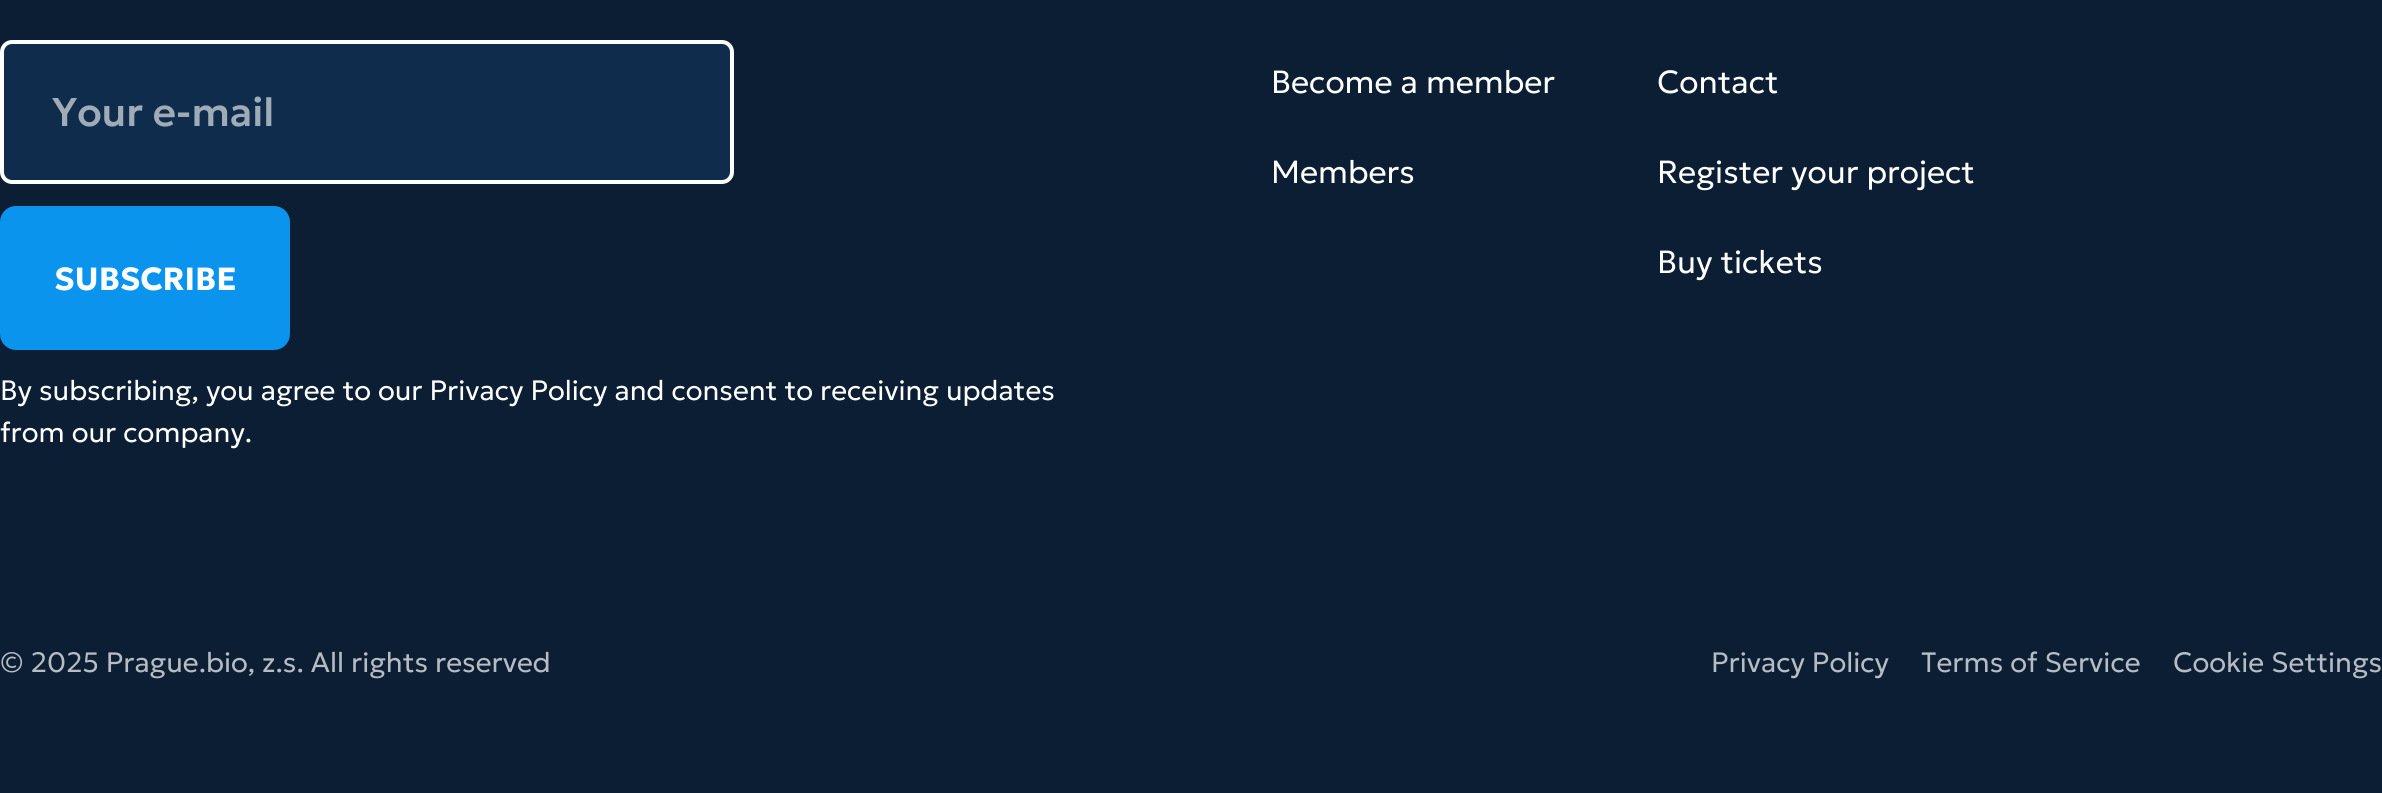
#include <cairo.h>
#include <math.h>
#include <stddef.h>

typedef struct { double x, y; const char *s; } line_t;

static void ink(cairo_t *ctx, unsigned color) {
    cairo_set_source_rgb(ctx, (color >> 16) / 255.0, (color >> 8 & 255) / 255.0, (color & 255) / 255.0);
}

static void round_path(cairo_t *ctx, double x, double y, double w, double h, double r) {
    cairo_new_sub_path(ctx);
    cairo_arc(ctx, x + w - r, y + h - r, r, 0, M_PI / 2);
    cairo_arc(ctx, x + r, y + h - r, r, M_PI / 2, M_PI);
    cairo_arc(ctx, x + r, y + r, r, M_PI, 1.5 * M_PI);
    cairo_arc(ctx, x + w - r, y + r, r, 1.5 * M_PI, 2 * M_PI);
    cairo_close_path(ctx);
}

int main(void) {
    cairo_surface_t *surface = cairo_image_surface_create(CAIRO_FORMAT_RGB24, 2382, 793);
    cairo_t *ctx = cairo_create(surface);
    cairo_font_options_t *options = cairo_font_options_create();
    cairo_font_options_set_hint_metrics(options, CAIRO_HINT_METRICS_OFF);
    cairo_font_options_set_hint_style(options, CAIRO_HINT_STYLE_NONE);
    cairo_set_font_options(ctx, options);
    cairo_set_miter_limit(ctx, 4);
    ink(ctx, 0x0B1E34);
    cairo_paint(ctx);
    ink(ctx, 0x102C4C);
    round_path(ctx, 2, 42, 730, 140, 10);
    cairo_fill_preserve(ctx);
    ink(ctx, 0xFFFFFF);
    cairo_set_line_width(ctx, 4);
    cairo_stroke(ctx);
    cairo_select_font_face(ctx, "Geologica Medium", CAIRO_FONT_SLANT_NORMAL, CAIRO_FONT_WEIGHT_NORMAL);
    cairo_set_font_size(ctx, 40);
    ink(ctx, 0x9FABB7);
    cairo_move_to(ctx, 52, 126);
    cairo_show_text(ctx, "Your e-mail");
    ink(ctx, 0x0A94ED);
    round_path(ctx, 3, 209, 284, 138, 13);
    cairo_fill_preserve(ctx);
    cairo_set_line_width(ctx, 6);
    cairo_stroke(ctx);
    cairo_select_font_face(ctx, "Geologica", CAIRO_FONT_SLANT_NORMAL, CAIRO_FONT_WEIGHT_BOLD);
    cairo_set_font_size(ctx, 32);
    ink(ctx, 0xFFFFFF);
    cairo_move_to(ctx, 54, 290);
    cairo_show_text(ctx, "SUBSCRIBE");
    cairo_select_font_face(ctx, "Geologica Light", CAIRO_FONT_SLANT_NORMAL, CAIRO_FONT_WEIGHT_NORMAL);
    cairo_set_font_size(ctx, 28);
    cairo_move_to(ctx, 0, 400);
    cairo_show_text(ctx, "By subscribing, you agree to our Privacy Policy and consent to receiving updates");
    cairo_move_to(ctx, 0, 442);
    cairo_show_text(ctx, "from our company.");
    cairo_set_font_size(ctx, 32);
    {
        static const line_t items[] = {
            {1271, 93, "Become a member"},
            {1271, 183, "Members"},
            {1657, 93, "Contact"},
            {1657, 183, "Register your project"},
            {1657, 273, "Buy tickets"},
        };
        for (size_t i = 0; i < sizeof items / sizeof *items; i++) {
            cairo_move_to(ctx, items[i].x, items[i].y);
            cairo_show_text(ctx, items[i].s);
        }
    }
    cairo_set_font_size(ctx, 28);
    ink(ctx, 0xB6BCC2);
    {
        static const line_t items[] = {
            {0, 672, "© 2025 Prague.bio, z.s. All rights reserved"},
            {1711, 672, "Privacy Policy"},
            {1921, 672, "Terms of Service"},
            {2173, 672, "Cookie Settings"},
        };
        for (size_t i = 0; i < sizeof items / sizeof *items; i++) {
            cairo_move_to(ctx, items[i].x, items[i].y);
            cairo_show_text(ctx, items[i].s);
        }
    }
    cairo_surface_write_to_png(surface, "image.png");
    cairo_font_options_destroy(options);
    cairo_destroy(ctx);
    cairo_surface_destroy(surface);
    return 0;
}
